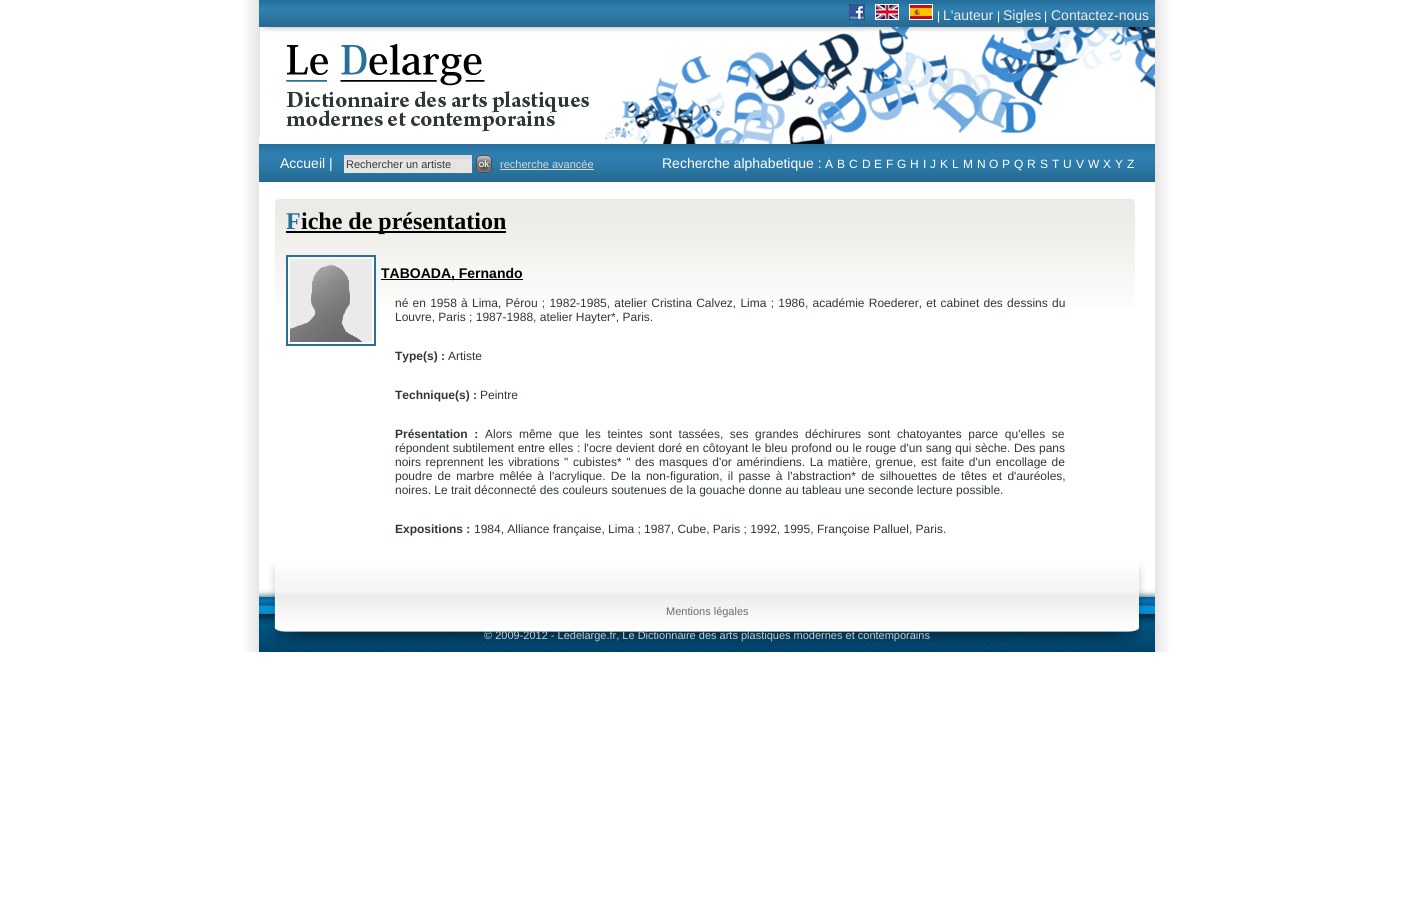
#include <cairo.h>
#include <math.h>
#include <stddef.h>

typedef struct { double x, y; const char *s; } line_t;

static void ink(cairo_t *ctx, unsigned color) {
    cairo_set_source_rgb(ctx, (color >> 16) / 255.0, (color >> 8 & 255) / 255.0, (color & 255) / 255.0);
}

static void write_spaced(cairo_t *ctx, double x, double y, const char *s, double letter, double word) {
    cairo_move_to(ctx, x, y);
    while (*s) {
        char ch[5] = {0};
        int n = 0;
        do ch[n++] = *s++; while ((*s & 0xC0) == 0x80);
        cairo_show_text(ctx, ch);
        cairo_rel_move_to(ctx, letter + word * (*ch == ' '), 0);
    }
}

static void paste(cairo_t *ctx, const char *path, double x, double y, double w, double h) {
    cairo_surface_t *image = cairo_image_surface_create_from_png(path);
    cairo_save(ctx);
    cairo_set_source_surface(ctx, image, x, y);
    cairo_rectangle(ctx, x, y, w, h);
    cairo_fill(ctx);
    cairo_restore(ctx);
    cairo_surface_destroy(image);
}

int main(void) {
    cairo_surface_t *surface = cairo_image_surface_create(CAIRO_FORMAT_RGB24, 1414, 912);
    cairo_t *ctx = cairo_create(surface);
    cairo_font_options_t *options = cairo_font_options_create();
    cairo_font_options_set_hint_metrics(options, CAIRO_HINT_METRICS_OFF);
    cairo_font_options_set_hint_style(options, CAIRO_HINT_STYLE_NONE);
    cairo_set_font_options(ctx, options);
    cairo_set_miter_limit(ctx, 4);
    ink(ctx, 0xFFFFFF);
    cairo_paint(ctx);
    paste(ctx, "media/1.png", 244, 0, 925, 652);
    paste(ctx, "media/2.png", 259, 0, 896, 27);
    paste(ctx, "media/3.png", 849, 4, 16, 16);
    paste(ctx, "media/4.png", 875, 4, 24, 16);
    paste(ctx, "media/5.png", 909, 4, 24, 16);
    cairo_select_font_face(ctx, "Liberation Sans", CAIRO_FONT_SLANT_NORMAL, CAIRO_FONT_WEIGHT_NORMAL);
    cairo_set_font_size(ctx, 12);
    ink(ctx, 0xFFFFFF);
    cairo_move_to(ctx, 937, 20);
    cairo_show_text(ctx, "|");
    cairo_set_font_size(ctx, 14);
    ink(ctx, 0xEEEDED);
    cairo_move_to(ctx, 943, 20);
    cairo_show_text(ctx, "L'auteur");
    cairo_set_font_size(ctx, 12);
    ink(ctx, 0xFFFFFF);
    cairo_move_to(ctx, 997, 20);
    cairo_show_text(ctx, "|");
    cairo_set_font_size(ctx, 14);
    ink(ctx, 0xEEEDED);
    cairo_move_to(ctx, 1003, 20);
    cairo_show_text(ctx, "Sigles");
    cairo_set_font_size(ctx, 12);
    ink(ctx, 0xFFFFFF);
    cairo_move_to(ctx, 1044, 20);
    cairo_show_text(ctx, "|");
    cairo_set_font_size(ctx, 14);
    ink(ctx, 0xEEEDED);
    cairo_move_to(ctx, 1051, 20);
    cairo_show_text(ctx, "Contactez-nous");
    paste(ctx, "media/6.png", 259, 27, 896, 117);
    paste(ctx, "media/7.png", 259, 144, 896, 38);
    ink(ctx, 0xFFFFFF);
    cairo_move_to(ctx, 280, 168);
    cairo_show_text(ctx, "Accueil |");
    ink(ctx, 0xE6E5E4);
    cairo_rectangle(ctx, 344, 159, 128, 14);
    cairo_fill(ctx);
    ink(ctx, 0xDDDCDA);
    cairo_rectangle(ctx, 344, 155, 128, 4);
    cairo_fill(ctx);
    cairo_set_font_size(ctx, 11);
    ink(ctx, 0x393939);
    cairo_move_to(ctx, 346, 168);
    cairo_show_text(ctx, "Rechercher un artiste");
    paste(ctx, "media/8.png", 476, 155, 16, 18);
    ink(ctx, 0xD8D8D8);
    cairo_move_to(ctx, 500, 168);
    cairo_show_text(ctx, "recherche avancée");
    cairo_rectangle(ctx, 500, 169, 94, 1);
    cairo_fill(ctx);
    cairo_set_font_size(ctx, 14);
    ink(ctx, 0xFFFFFF);
    cairo_move_to(ctx, 662, 168);
    cairo_show_text(ctx, "Recherche alphabetique :");
    cairo_set_font_size(ctx, 12);
    {
        static const line_t items[] = {
            {825, 168, "A"},
            {837, 168, "B"},
            {849, 168, "C"},
            {862, 168, "D"},
            {874, 168, "E"},
            {886, 168, "F"},
            {897, 168, "G"},
            {910, 168, "H"},
            {923, 168, "I"},
            {930, 168, "J"},
            {940, 168, "K"},
            {952, 168, "L"},
            {963, 168, "M"},
            {977, 168, "N"},
            {989, 168, "O"},
            {1002, 168, "P"},
            {1014, 168, "Q"},
            {1027, 168, "R"},
            {1040, 168, "S"},
            {1052, 168, "T"},
            {1063, 168, "U"},
            {1076, 168, "V"},
            {1088, 168, "W"},
            {1103, 168, "X"},
            {1115, 168, "Y"},
            {1127, 168, "Z"},
        };
        for (size_t i = 0; i < sizeof items / sizeof *items; i++) {
            cairo_move_to(ctx, items[i].x, items[i].y);
            cairo_show_text(ctx, items[i].s);
        }
    }
    paste(ctx, "media/9.png", 286, 198, 838, 108);
    paste(ctx, "media/10.png", 275, 198, 11, 108);
    cairo_select_font_face(ctx, "Liberation Serif", CAIRO_FONT_SLANT_NORMAL, CAIRO_FONT_WEIGHT_BOLD);
    cairo_set_font_size(ctx, 24);
    ink(ctx, 0x27709A);
    cairo_move_to(ctx, 286, 229);
    cairo_show_text(ctx, "F");
    ink(ctx, 0x000000);
    cairo_rectangle(ctx, 286, 231, 220, 2);
    cairo_fill(ctx);
    cairo_move_to(ctx, 301, 229);
    cairo_show_text(ctx, "iche de présentation");
    paste(ctx, "media/11.png", 1124, 198, 11, 108);
    cairo_rectangle(ctx, 287, 256, 88, 89);
    ink(ctx, 0x287194);
    cairo_stroke(ctx);
    paste(ctx, "media/12.png", 288, 257, 86, 87);
    ink(ctx, 0x000000);
    cairo_rectangle(ctx, 381, 279, 142, 1);
    cairo_fill(ctx);
    cairo_select_font_face(ctx, "Liberation Sans", CAIRO_FONT_SLANT_NORMAL, CAIRO_FONT_WEIGHT_BOLD);
    cairo_set_font_size(ctx, 14);
    cairo_move_to(ctx, 381, 278);
    cairo_show_text(ctx, "TABOADA, Fernando");
    cairo_select_font_face(ctx, "Liberation Sans", CAIRO_FONT_SLANT_NORMAL, CAIRO_FONT_WEIGHT_NORMAL);
    cairo_set_font_size(ctx, 12);
    ink(ctx, 0x2F3739);
    write_spaced(ctx, 395, 307, "né en 1958 à Lima, Pérou ; 1982-1985, atelier Cristina Calvez, Lima ; 1986, académie Roederer, et cabinet des dessins du", 0, 0.9);
    cairo_move_to(ctx, 395, 321);
    cairo_show_text(ctx, "Louvre, Paris ; 1987-1988, atelier Hayter*, Paris.");
    cairo_select_font_face(ctx, "Liberation Sans", CAIRO_FONT_SLANT_NORMAL, CAIRO_FONT_WEIGHT_BOLD);
    cairo_move_to(ctx, 395, 360);
    cairo_show_text(ctx, "Type(s) :");
    cairo_select_font_face(ctx, "Liberation Sans", CAIRO_FONT_SLANT_NORMAL, CAIRO_FONT_WEIGHT_NORMAL);
    cairo_move_to(ctx, 448, 360);
    cairo_show_text(ctx, "Artiste");
    cairo_select_font_face(ctx, "Liberation Sans", CAIRO_FONT_SLANT_NORMAL, CAIRO_FONT_WEIGHT_BOLD);
    cairo_move_to(ctx, 395, 399);
    cairo_show_text(ctx, "Technique(s) :");
    cairo_select_font_face(ctx, "Liberation Sans", CAIRO_FONT_SLANT_NORMAL, CAIRO_FONT_WEIGHT_NORMAL);
    cairo_move_to(ctx, 480, 399);
    cairo_show_text(ctx, "Peintre");
    cairo_select_font_face(ctx, "Liberation Sans", CAIRO_FONT_SLANT_NORMAL, CAIRO_FONT_WEIGHT_BOLD);
    write_spaced(ctx, 395, 438, "Présentation :", 0, 3.25);
    cairo_select_font_face(ctx, "Liberation Sans", CAIRO_FONT_SLANT_NORMAL, CAIRO_FONT_WEIGHT_NORMAL);
    write_spaced(ctx, 485, 438, "Alors même que les teintes sont tassées, ses grandes déchirures sont chatoyantes parce qu'elles se", 0, 3.25);
    write_spaced(ctx, 395, 452, "répondent subtilement entre elles : l'ocre devient doré en côtoyant le bleu profond ou le rouge d'un sang qui sèche. Des pans", 0, 0.3);
    write_spaced(ctx, 395, 466, "noirs reprennent les vibrations \" cubistes* \" des masques d'or amérindiens. La matière, grenue, est faite d'un encollage de", 0, 1.25);
    write_spaced(ctx, 395, 480, "poudre de marbre mêlée à l'acrylique. De la non-figuration, il passe à l'abstraction* de silhouettes de têtes et d'auréoles,", 0, 1.9);
    cairo_move_to(ctx, 395, 494);
    cairo_show_text(ctx, "noires. Le trait déconnecté des couleurs soutenues de la gouache donne au tableau une seconde lecture possible.");
    cairo_select_font_face(ctx, "Liberation Sans", CAIRO_FONT_SLANT_NORMAL, CAIRO_FONT_WEIGHT_BOLD);
    cairo_move_to(ctx, 395, 533);
    cairo_show_text(ctx, "Expositions :");
    cairo_select_font_face(ctx, "Liberation Sans", CAIRO_FONT_SLANT_NORMAL, CAIRO_FONT_WEIGHT_NORMAL);
    cairo_move_to(ctx, 474, 533);
    cairo_show_text(ctx, "1984, Alliance française, Lima ; 1987, Cube, Paris ; 1992, 1995, Françoise Palluel, Paris.");
    paste(ctx, "media/13.png", 259, 560, 896, 92);
    cairo_set_font_size(ctx, 11);
    ink(ctx, 0x6D6D6D);
    cairo_move_to(ctx, 666, 615);
    cairo_show_text(ctx, "Mentions légales");
    ink(ctx, 0xCCCCCC);
    cairo_move_to(ctx, 484, 639);
    cairo_show_text(ctx, "© 2009-2012 - Ledelarge.fr, Le Dictionnaire des arts plastiques modernes et contemporains");
    cairo_surface_write_to_png(surface, "image.png");
    cairo_font_options_destroy(options);
    cairo_destroy(ctx);
    cairo_surface_destroy(surface);
    return 0;
}
